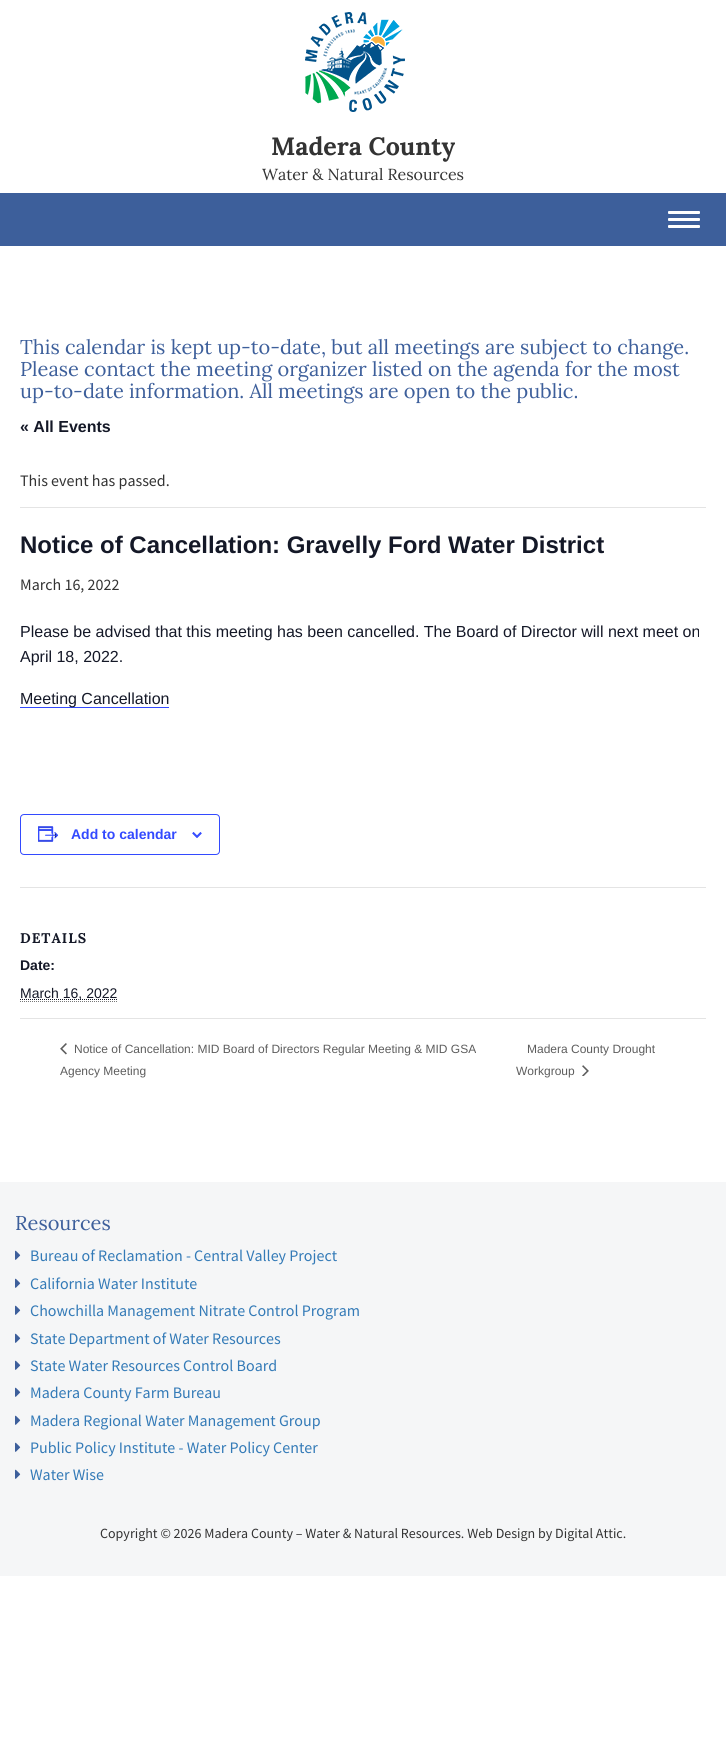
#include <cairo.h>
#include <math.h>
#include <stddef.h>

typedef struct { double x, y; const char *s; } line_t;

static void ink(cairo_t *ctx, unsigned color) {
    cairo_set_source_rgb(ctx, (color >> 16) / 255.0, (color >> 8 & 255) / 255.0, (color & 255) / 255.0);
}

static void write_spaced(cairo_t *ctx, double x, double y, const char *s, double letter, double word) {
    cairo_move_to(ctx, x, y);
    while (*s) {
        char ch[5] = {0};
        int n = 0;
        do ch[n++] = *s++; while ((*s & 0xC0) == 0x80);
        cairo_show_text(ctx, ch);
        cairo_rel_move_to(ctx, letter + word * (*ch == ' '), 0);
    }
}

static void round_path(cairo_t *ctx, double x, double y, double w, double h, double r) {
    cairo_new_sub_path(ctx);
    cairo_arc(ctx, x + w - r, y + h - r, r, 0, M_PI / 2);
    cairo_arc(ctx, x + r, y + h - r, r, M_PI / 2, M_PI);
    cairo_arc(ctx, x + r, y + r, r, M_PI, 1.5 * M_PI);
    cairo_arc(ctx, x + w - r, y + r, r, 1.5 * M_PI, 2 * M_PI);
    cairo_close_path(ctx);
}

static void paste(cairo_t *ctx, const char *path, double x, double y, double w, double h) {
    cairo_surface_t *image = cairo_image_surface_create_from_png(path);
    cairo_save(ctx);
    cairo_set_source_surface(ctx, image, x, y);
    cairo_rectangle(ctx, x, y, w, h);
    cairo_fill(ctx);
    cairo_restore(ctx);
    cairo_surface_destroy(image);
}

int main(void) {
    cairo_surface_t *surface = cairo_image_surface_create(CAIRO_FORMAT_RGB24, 726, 1737);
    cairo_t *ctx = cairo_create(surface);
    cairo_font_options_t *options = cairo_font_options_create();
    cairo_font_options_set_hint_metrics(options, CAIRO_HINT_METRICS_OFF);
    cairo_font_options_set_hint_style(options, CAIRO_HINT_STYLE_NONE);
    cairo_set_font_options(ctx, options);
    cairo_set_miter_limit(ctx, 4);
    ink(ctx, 0xFFFFFF);
    cairo_paint(ctx);
    paste(ctx, "media/1.png", 305, 12, 100, 100);
    cairo_select_font_face(ctx, "Lora", CAIRO_FONT_SLANT_NORMAL, CAIRO_FONT_WEIGHT_BOLD);
    cairo_set_font_size(ctx, 25);
    ink(ctx, 0x333333);
    cairo_move_to(ctx, 271, 155);
    cairo_show_text(ctx, "Madera County");
    cairo_select_font_face(ctx, "Lora", CAIRO_FONT_SLANT_NORMAL, CAIRO_FONT_WEIGHT_NORMAL);
    cairo_set_font_size(ctx, 16);
    cairo_move_to(ctx, 262, 180);
    cairo_show_text(ctx, "Water & Natural Resources");
    ink(ctx, 0x3D5F9B);
    cairo_rectangle(ctx, 0, 193, 726, 53);
    cairo_fill(ctx);
    ink(ctx, 0xFFFFFF);
    round_path(ctx, 668, 211, 32, 3, 1);
    cairo_fill(ctx);
    round_path(ctx, 668, 218, 32, 3, 1);
    cairo_fill(ctx);
    round_path(ctx, 668, 225, 32, 3, 1);
    cairo_fill(ctx);
    cairo_set_font_size(ctx, 20);
    ink(ctx, 0x3D5F9B);
    {
        static const line_t items[] = {
            {20, 354, "This calendar is kept up-to-date, but all meetings are subject to change."},
            {20, 376, "Please contact the meeting organizer listed on the agenda for the most"},
            {20, 398, "up-to-date information. All meetings are open to the public."},
        };
        for (size_t i = 0; i < sizeof items / sizeof *items; i++) {
            cairo_move_to(ctx, items[i].x, items[i].y);
            cairo_show_text(ctx, items[i].s);
        }
    }
    cairo_select_font_face(ctx, "Liberation Sans", CAIRO_FONT_SLANT_NORMAL, CAIRO_FONT_WEIGHT_BOLD);
    cairo_set_font_size(ctx, 16);
    ink(ctx, 0x141827);
    cairo_move_to(ctx, 20, 432);
    cairo_show_text(ctx, "« All Events");
    ink(ctx, 0xE4E4E4);
    cairo_rectangle(ctx, 20, 507, 686, 1);
    cairo_fill(ctx);
    cairo_select_font_face(ctx, "Source Sans Pro", CAIRO_FONT_SLANT_NORMAL, CAIRO_FONT_WEIGHT_NORMAL);
    ink(ctx, 0x333333);
    cairo_move_to(ctx, 20, 486);
    cairo_show_text(ctx, "This event has passed.");
    cairo_select_font_face(ctx, "Liberation Sans", CAIRO_FONT_SLANT_NORMAL, CAIRO_FONT_WEIGHT_BOLD);
    cairo_set_font_size(ctx, 24);
    ink(ctx, 0x141827);
    cairo_move_to(ctx, 20, 553);
    cairo_show_text(ctx, "Notice of Cancellation: Gravelly Ford Water District");
    cairo_select_font_face(ctx, "Source Sans Pro", CAIRO_FONT_SLANT_NORMAL, CAIRO_FONT_WEIGHT_NORMAL);
    cairo_set_font_size(ctx, 16);
    ink(ctx, 0x333333);
    cairo_move_to(ctx, 20, 590);
    cairo_show_text(ctx, "March 16, 2022");
    cairo_select_font_face(ctx, "Liberation Sans", CAIRO_FONT_SLANT_NORMAL, CAIRO_FONT_WEIGHT_NORMAL);
    ink(ctx, 0x141827);
    cairo_move_to(ctx, 20, 637);
    cairo_show_text(ctx, "Please be advised that this meeting has been cancelled. The Board of Director will next meet on");
    cairo_move_to(ctx, 20, 662);
    cairo_show_text(ctx, "April 18, 2022.");
    ink(ctx, 0x334AFF);
    cairo_rectangle(ctx, 20, 707, 149, 1);
    cairo_fill(ctx);
    ink(ctx, 0x141827);
    cairo_move_to(ctx, 20, 704);
    cairo_show_text(ctx, "Meeting Cancellation");
    round_path(ctx, 20.5, 814.5, 199, 40, 3.5);
    ink(ctx, 0x334AFF);
    cairo_set_line_width(ctx, 1);
    cairo_stroke(ctx);
    paste(ctx, "media/2.png", 38, 826, 21, 16);
    cairo_select_font_face(ctx, "Liberation Sans", CAIRO_FONT_SLANT_NORMAL, CAIRO_FONT_WEIGHT_BOLD);
    cairo_set_font_size(ctx, 14);
    cairo_move_to(ctx, 71, 839);
    cairo_show_text(ctx, "Add to calendar");
    paste(ctx, "media/3.png", 192, 832, 10, 6);
    ink(ctx, 0xE4E4E4);
    cairo_rectangle(ctx, 20, 887, 686, 1);
    cairo_fill(ctx);
    cairo_select_font_face(ctx, "Lora", CAIRO_FONT_SLANT_NORMAL, CAIRO_FONT_WEIGHT_BOLD);
    ink(ctx, 0x141827);
    write_spaced(ctx, 20, 943, "DETAILS", 1, 0);
    cairo_select_font_face(ctx, "Liberation Sans", CAIRO_FONT_SLANT_NORMAL, CAIRO_FONT_WEIGHT_BOLD);
    cairo_move_to(ctx, 20, 970);
    cairo_show_text(ctx, "Date:");
    cairo_new_path(ctx);
    cairo_move_to(ctx, 20, 999.5);
    cairo_line_to(ctx, 117.5, 999.5);
    cairo_set_dash(ctx, (double[]){1, 1}, 2, 0);
    cairo_stroke(ctx);
    cairo_select_font_face(ctx, "Liberation Sans", CAIRO_FONT_SLANT_NORMAL, CAIRO_FONT_WEIGHT_NORMAL);
    cairo_move_to(ctx, 20, 998);
    cairo_show_text(ctx, "March 16, 2022");
    cairo_new_path(ctx);
    cairo_move_to(ctx, 20, 1001.5);
    cairo_line_to(ctx, 117, 1001.5);
    ink(ctx, 0x777777);
    cairo_stroke(ctx);
    ink(ctx, 0xE4E4E4);
    cairo_rectangle(ctx, 20, 1018, 686, 1);
    cairo_fill(ctx);
    paste(ctx, "media/4.png", 60, 1043, 7, 12);
    cairo_set_font_size(ctx, 12);
    ink(ctx, 0x5D5D5D);
    {
        static const line_t items[] = {
            {74, 1053, "Notice of Cancellation: MID Board of Directors Regular Meeting & MID GSA"},
            {60, 1075, "Agency Meeting"},
            {527, 1053, "Madera County Drought"},
            {516, 1075, "Workgroup"},
        };
        for (size_t i = 0; i < sizeof items / sizeof *items; i++) {
            cairo_move_to(ctx, items[i].x, items[i].y);
            cairo_show_text(ctx, items[i].s);
        }
    }
    paste(ctx, "media/5.png", 582, 1065, 7, 11);
    ink(ctx, 0xF5F6F7);
    cairo_rectangle(ctx, 0, 1182, 726, 394);
    cairo_fill(ctx);
    cairo_select_font_face(ctx, "Lora", CAIRO_FONT_SLANT_NORMAL, CAIRO_FONT_WEIGHT_NORMAL);
    cairo_set_font_size(ctx, 20);
    ink(ctx, 0x3D5F9B);
    cairo_move_to(ctx, 15, 1230);
    cairo_show_text(ctx, "Resources");
    paste(ctx, "media/6.png", 15, 1250, 6, 10);
    cairo_select_font_face(ctx, "Source Sans Pro", CAIRO_FONT_SLANT_NORMAL, CAIRO_FONT_WEIGHT_NORMAL);
    cairo_set_font_size(ctx, 16);
    ink(ctx, 0x337AB7);
    cairo_move_to(ctx, 30, 1261);
    cairo_show_text(ctx, "Bureau of Reclamation - Central Valley Project");
    paste(ctx, "media/6.png", 15, 1278, 6, 10);
    cairo_move_to(ctx, 30, 1289);
    cairo_show_text(ctx, "California Water Institute");
    paste(ctx, "media/6.png", 15, 1305, 6, 10);
    cairo_move_to(ctx, 30, 1316);
    cairo_show_text(ctx, "Chowchilla Management Nitrate Control Program");
    paste(ctx, "media/6.png", 15, 1333, 6, 10);
    cairo_move_to(ctx, 30, 1344);
    cairo_show_text(ctx, "State Department of Water Resources");
    paste(ctx, "media/6.png", 15, 1360, 6, 10);
    cairo_move_to(ctx, 30, 1371);
    cairo_show_text(ctx, "State Water Resources Control Board");
    paste(ctx, "media/6.png", 15, 1387, 6, 10);
    cairo_move_to(ctx, 30, 1398);
    cairo_show_text(ctx, "Madera County Farm Bureau");
    paste(ctx, "media/6.png", 15, 1415, 6, 10);
    cairo_move_to(ctx, 30, 1426);
    cairo_show_text(ctx, "Madera Regional Water Management Group");
    paste(ctx, "media/6.png", 15, 1442, 6, 10);
    cairo_move_to(ctx, 30, 1453);
    cairo_show_text(ctx, "Public Policy Institute - Water Policy Center");
    paste(ctx, "media/6.png", 15, 1469, 6, 10);
    cairo_move_to(ctx, 30, 1480);
    cairo_show_text(ctx, "Water Wise");
    cairo_set_font_size(ctx, 14);
    ink(ctx, 0x333333);
    cairo_move_to(ctx, 100, 1538);
    cairo_show_text(ctx, "Copyright © 2026 Madera County – Water & Natural Resources. Web Design by Digital Attic.");
    cairo_surface_write_to_png(surface, "image.png");
    cairo_font_options_destroy(options);
    cairo_destroy(ctx);
    cairo_surface_destroy(surface);
    return 0;
}
